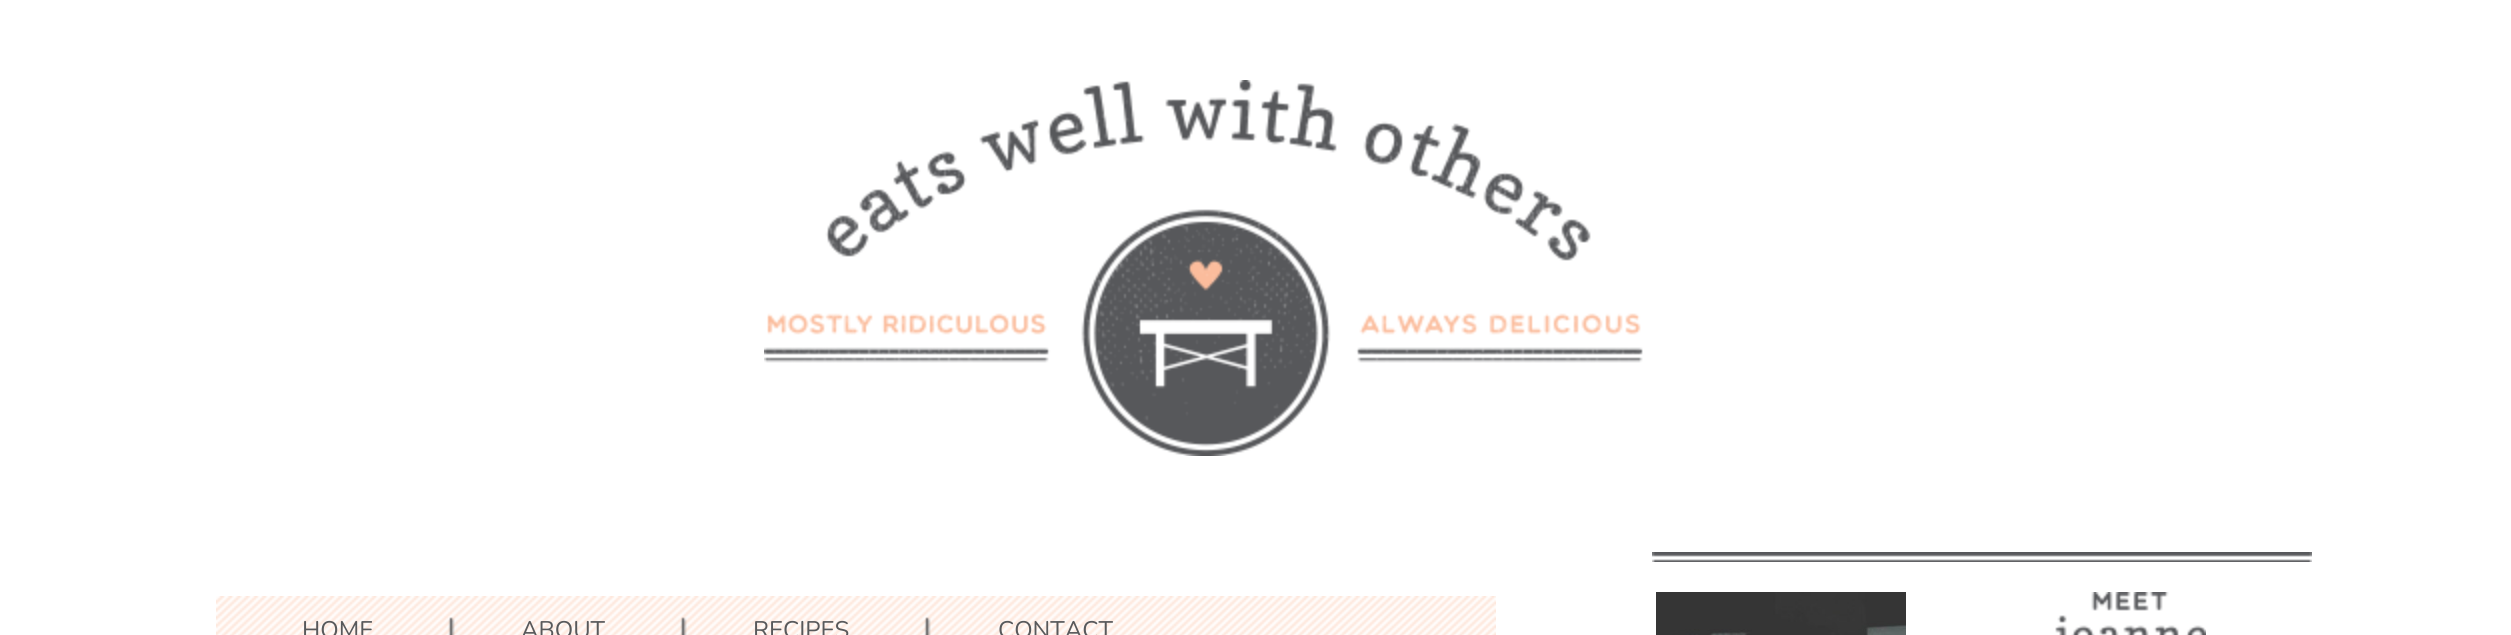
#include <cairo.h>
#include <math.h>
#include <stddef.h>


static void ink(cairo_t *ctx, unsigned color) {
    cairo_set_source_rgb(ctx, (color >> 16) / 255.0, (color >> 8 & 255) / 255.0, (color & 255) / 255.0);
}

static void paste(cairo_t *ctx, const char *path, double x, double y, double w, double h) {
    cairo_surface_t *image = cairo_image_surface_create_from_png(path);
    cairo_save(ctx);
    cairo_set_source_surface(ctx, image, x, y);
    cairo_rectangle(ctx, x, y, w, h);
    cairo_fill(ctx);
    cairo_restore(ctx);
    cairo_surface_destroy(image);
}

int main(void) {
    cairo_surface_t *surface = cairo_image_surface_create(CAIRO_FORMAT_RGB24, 2511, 635);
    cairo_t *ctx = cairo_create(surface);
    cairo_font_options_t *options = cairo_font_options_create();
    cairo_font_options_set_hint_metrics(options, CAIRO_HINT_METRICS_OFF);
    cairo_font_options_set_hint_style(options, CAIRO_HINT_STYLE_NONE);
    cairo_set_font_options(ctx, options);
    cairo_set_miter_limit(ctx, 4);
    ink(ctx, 0xFFFFFF);
    cairo_paint(ctx);
    paste(ctx, "media/1.png", 764, 80, 879, 376);
    paste(ctx, "media/2.png", 216, 596, 1280, 39);
    cairo_select_font_face(ctx, "Nunito ExtraLight", CAIRO_FONT_SLANT_NORMAL, CAIRO_FONT_WEIGHT_NORMAL);
    cairo_set_font_size(ctx, 24);
    ink(ctx, 0x58595B);
    cairo_move_to(ctx, 302, 638);
    cairo_show_text(ctx, "HOME");
    paste(ctx, "media/3.png", 448, 617, 7, 18);
    cairo_move_to(ctx, 521, 638);
    cairo_show_text(ctx, "ABOUT");
    paste(ctx, "media/4.png", 680, 617, 7, 18);
    cairo_move_to(ctx, 753, 638);
    cairo_show_text(ctx, "RECIPES");
    paste(ctx, "media/5.png", 924, 617, 7, 18);
    cairo_move_to(ctx, 998, 638);
    cairo_show_text(ctx, "CONTACT");
    paste(ctx, "media/6.png", 1652, 552, 660, 10);
    paste(ctx, "media/7.png", 1656, 592, 250, 43);
    paste(ctx, "media/8.png", 2055, 592, 151, 43);
    cairo_surface_write_to_png(surface, "image.png");
    cairo_font_options_destroy(options);
    cairo_destroy(ctx);
    cairo_surface_destroy(surface);
    return 0;
}
